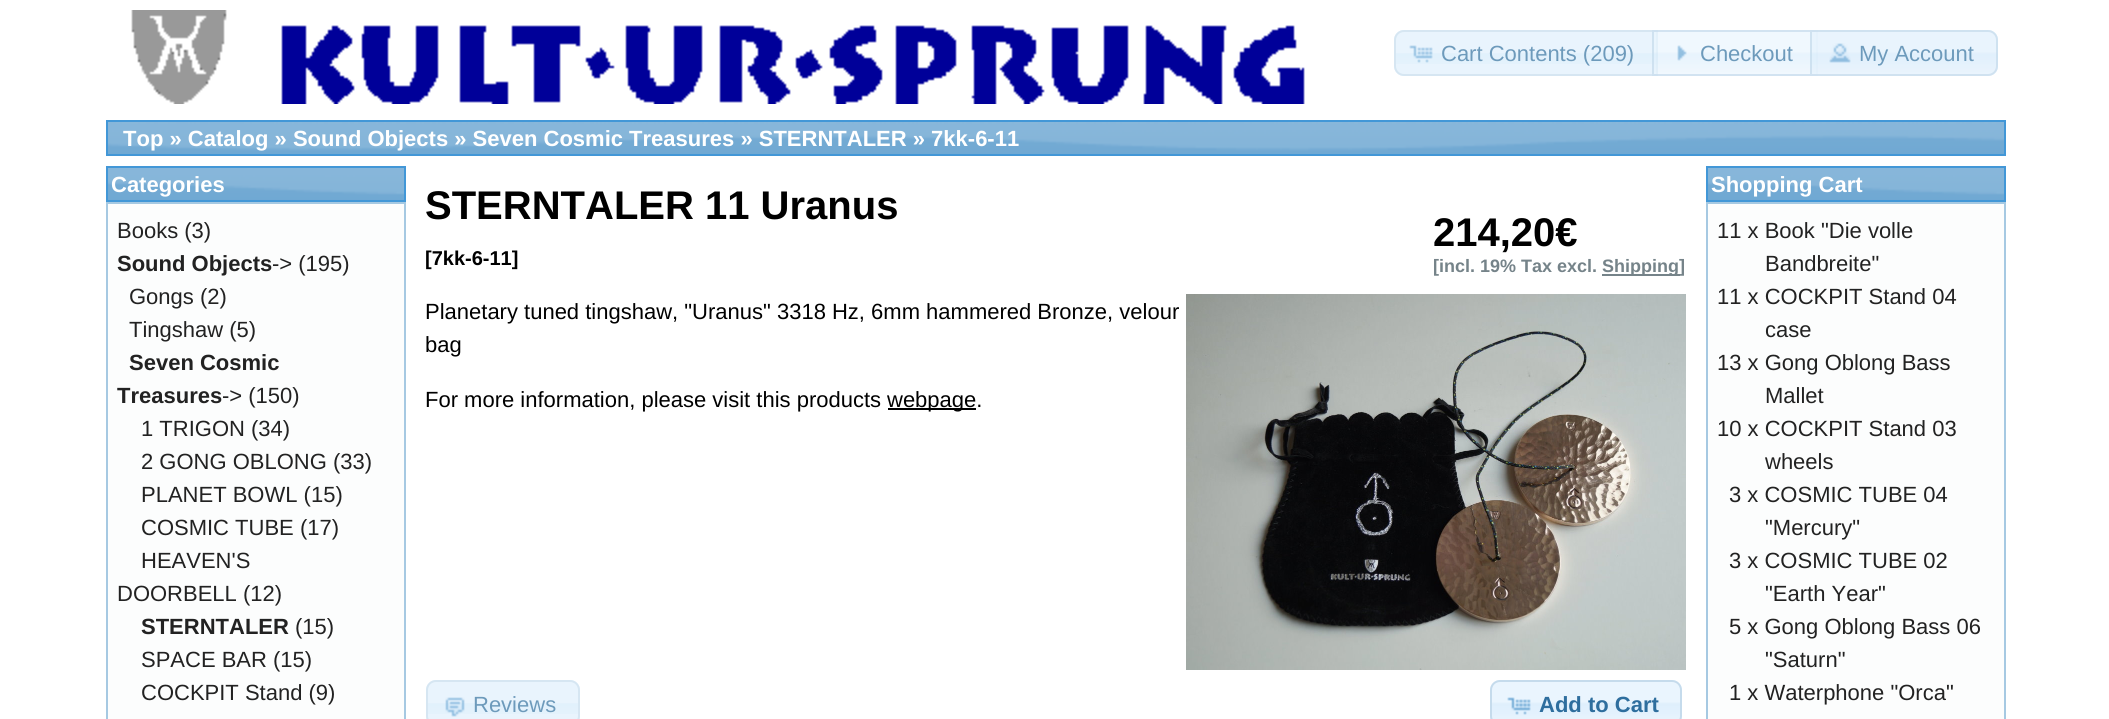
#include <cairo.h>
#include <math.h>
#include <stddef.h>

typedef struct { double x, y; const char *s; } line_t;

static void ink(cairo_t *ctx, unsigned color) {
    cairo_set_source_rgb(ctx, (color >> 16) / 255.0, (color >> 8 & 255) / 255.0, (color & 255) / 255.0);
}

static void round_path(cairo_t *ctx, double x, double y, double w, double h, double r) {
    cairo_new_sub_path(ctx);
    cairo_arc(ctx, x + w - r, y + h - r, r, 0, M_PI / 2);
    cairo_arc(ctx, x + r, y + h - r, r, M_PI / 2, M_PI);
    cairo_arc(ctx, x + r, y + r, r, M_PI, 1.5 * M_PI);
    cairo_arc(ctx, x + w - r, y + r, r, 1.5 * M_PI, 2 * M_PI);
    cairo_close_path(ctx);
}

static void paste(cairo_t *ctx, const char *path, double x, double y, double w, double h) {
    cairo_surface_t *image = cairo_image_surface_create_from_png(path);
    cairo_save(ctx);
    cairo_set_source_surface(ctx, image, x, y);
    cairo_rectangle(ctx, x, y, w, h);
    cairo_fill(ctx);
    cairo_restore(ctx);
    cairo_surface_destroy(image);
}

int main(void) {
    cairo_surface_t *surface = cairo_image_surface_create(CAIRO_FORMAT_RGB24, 2109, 719);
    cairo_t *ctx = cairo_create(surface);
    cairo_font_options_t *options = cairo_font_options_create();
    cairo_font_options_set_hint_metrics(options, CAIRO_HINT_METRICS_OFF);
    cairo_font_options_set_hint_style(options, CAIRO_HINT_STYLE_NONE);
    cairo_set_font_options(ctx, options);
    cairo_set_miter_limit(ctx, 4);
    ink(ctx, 0xFFFFFF);
    cairo_paint(ctx);
    paste(ctx, "media/1.png", 131, 10, 1174, 94);
    ink(ctx, 0xE9F4FD);
    cairo_new_path(ctx);
    cairo_move_to(ctx, 1404, 30);
    cairo_line_to(ctx, 1658, 30);
    cairo_line_to(ctx, 1658, 76);
    cairo_line_to(ctx, 1404, 76);
    cairo_curve_to(ctx, 1398.5, 76, 1394, 71.5, 1394, 66);
    cairo_line_to(ctx, 1394, 40);
    cairo_curve_to(ctx, 1394, 34.5, 1398.5, 30, 1404, 30);
    cairo_close_path(ctx);
    cairo_fill(ctx);
    paste(ctx, "media/2.png", 1396, 53, 260, 11);
    cairo_new_path(ctx);
    cairo_move_to(ctx, 1404, 31);
    cairo_line_to(ctx, 1657, 31);
    cairo_line_to(ctx, 1657, 75);
    cairo_line_to(ctx, 1404, 75);
    cairo_curve_to(ctx, 1399, 75, 1395, 71, 1395, 66);
    cairo_line_to(ctx, 1395, 40);
    cairo_curve_to(ctx, 1395, 35, 1399, 31, 1404, 31);
    cairo_close_path(ctx);
    ink(ctx, 0xD6E6F2);
    cairo_stroke(ctx);
    paste(ctx, "media/3.png", 1409, 45, 24, 18);
    cairo_select_font_face(ctx, "Liberation Sans", CAIRO_FONT_SLANT_NORMAL, CAIRO_FONT_WEIGHT_NORMAL);
    cairo_set_font_size(ctx, 22);
    ink(ctx, 0x6D9ABB);
    cairo_move_to(ctx, 1441, 61);
    cairo_show_text(ctx, "Cart Contents (209)");
    paste(ctx, "media/4.png", 1652, 30, 166, 46);
    cairo_rectangle(ctx, 1653, 31, 164, 44);
    cairo_set_source_rgba(ctx, 0.773, 0.859, 0.925, 0.7);
    cairo_stroke(ctx);
    paste(ctx, "media/5.png", 1677, 45, 10, 16);
    ink(ctx, 0x6D9ABB);
    cairo_move_to(ctx, 1700, 61);
    cairo_show_text(ctx, "Checkout");
    cairo_set_source_rgba(ctx, 0.875, 0.937, 0.988, 0.7);
    cairo_new_path(ctx);
    cairo_move_to(ctx, 1810, 30);
    cairo_line_to(ctx, 1988, 30);
    cairo_curve_to(ctx, 1993.5, 30, 1998, 34.5, 1998, 40);
    cairo_line_to(ctx, 1998, 66);
    cairo_curve_to(ctx, 1998, 71.5, 1993.5, 76, 1988, 76);
    cairo_line_to(ctx, 1810, 76);
    cairo_close_path(ctx);
    cairo_fill(ctx);
    paste(ctx, "media/6.png", 1810, 30, 188, 46);
    cairo_new_path(ctx);
    cairo_move_to(ctx, 1811, 31);
    cairo_line_to(ctx, 1988, 31);
    cairo_curve_to(ctx, 1993, 31, 1997, 35, 1997, 40);
    cairo_line_to(ctx, 1997, 66);
    cairo_curve_to(ctx, 1997, 71, 1993, 75, 1988, 75);
    cairo_line_to(ctx, 1811, 75);
    cairo_close_path(ctx);
    cairo_set_source_rgba(ctx, 0.773, 0.859, 0.925, 0.7);
    cairo_stroke(ctx);
    paste(ctx, "media/7.png", 1829, 43, 22, 20);
    ink(ctx, 0x6D9ABB);
    cairo_move_to(ctx, 1859, 61);
    cairo_show_text(ctx, "My Account");
    paste(ctx, "media/8.png", 108, 122, 1896, 32);
    cairo_rectangle(ctx, 107, 121, 1898, 34);
    ink(ctx, 0x4297D7);
    cairo_stroke(ctx);
    cairo_select_font_face(ctx, "Liberation Sans", CAIRO_FONT_SLANT_NORMAL, CAIRO_FONT_WEIGHT_BOLD);
    ink(ctx, 0xFFFFFF);
    cairo_move_to(ctx, 123, 146);
    cairo_show_text(ctx, "Top » Catalog » Sound Objects » Seven Cosmic Treasures » STERNTALER » 7kk-6-11");
    paste(ctx, "media/9.png", 108, 168, 296, 32);
    cairo_rectangle(ctx, 107, 167, 298, 34);
    ink(ctx, 0x4297D7);
    cairo_stroke(ctx);
    ink(ctx, 0xFFFFFF);
    cairo_move_to(ctx, 111, 192);
    cairo_show_text(ctx, "Categories");
    ink(ctx, 0xFCFDFD);
    cairo_rectangle(ctx, 107, 203, 298, 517);
    cairo_fill_preserve(ctx);
    ink(ctx, 0xA6C9E2);
    cairo_stroke(ctx);
    cairo_select_font_face(ctx, "Liberation Sans", CAIRO_FONT_SLANT_NORMAL, CAIRO_FONT_WEIGHT_NORMAL);
    ink(ctx, 0x222222);
    cairo_move_to(ctx, 117, 238);
    cairo_show_text(ctx, "Books (3)");
    cairo_select_font_face(ctx, "Liberation Sans", CAIRO_FONT_SLANT_NORMAL, CAIRO_FONT_WEIGHT_BOLD);
    cairo_move_to(ctx, 117, 271);
    cairo_show_text(ctx, "Sound Objects");
    cairo_select_font_face(ctx, "Liberation Sans", CAIRO_FONT_SLANT_NORMAL, CAIRO_FONT_WEIGHT_NORMAL);
    {
        static const line_t items[] = {
            {272, 271, "-> (195)"},
            {129, 304, "Gongs (2)"},
            {129, 337, "Tingshaw (5)"},
        };
        for (size_t i = 0; i < sizeof items / sizeof *items; i++) {
            cairo_move_to(ctx, items[i].x, items[i].y);
            cairo_show_text(ctx, items[i].s);
        }
    }
    cairo_select_font_face(ctx, "Liberation Sans", CAIRO_FONT_SLANT_NORMAL, CAIRO_FONT_WEIGHT_BOLD);
    cairo_move_to(ctx, 129, 370);
    cairo_show_text(ctx, "Seven Cosmic");
    cairo_move_to(ctx, 117, 403);
    cairo_show_text(ctx, "Treasures");
    cairo_select_font_face(ctx, "Liberation Sans", CAIRO_FONT_SLANT_NORMAL, CAIRO_FONT_WEIGHT_NORMAL);
    {
        static const line_t items[] = {
            {222, 403, "-> (150)"},
            {141, 436, "1 TRIGON (34)"},
            {141, 469, "2 GONG OBLONG (33)"},
            {141, 502, "PLANET BOWL (15)"},
            {141, 535, "COSMIC TUBE (17)"},
            {141, 568, "HEAVEN'S"},
            {117, 601, "DOORBELL (12)"},
        };
        for (size_t i = 0; i < sizeof items / sizeof *items; i++) {
            cairo_move_to(ctx, items[i].x, items[i].y);
            cairo_show_text(ctx, items[i].s);
        }
    }
    cairo_select_font_face(ctx, "Liberation Sans", CAIRO_FONT_SLANT_NORMAL, CAIRO_FONT_WEIGHT_BOLD);
    cairo_move_to(ctx, 141, 634);
    cairo_show_text(ctx, "STERNTALER");
    cairo_select_font_face(ctx, "Liberation Sans", CAIRO_FONT_SLANT_NORMAL, CAIRO_FONT_WEIGHT_NORMAL);
    {
        static const line_t items[] = {
            {295, 634, "(15)"},
            {141, 667, "SPACE BAR (15)"},
            {141, 700, "COCKPIT Stand (9)"},
        };
        for (size_t i = 0; i < sizeof items / sizeof *items; i++) {
            cairo_move_to(ctx, items[i].x, items[i].y);
            cairo_show_text(ctx, items[i].s);
        }
    }
    cairo_select_font_face(ctx, "Liberation Sans", CAIRO_FONT_SLANT_NORMAL, CAIRO_FONT_WEIGHT_BOLD);
    cairo_set_font_size(ctx, 40);
    ink(ctx, 0x000000);
    cairo_move_to(ctx, 425, 219);
    cairo_show_text(ctx, "STERNTALER 11 Uranus");
    cairo_set_font_size(ctx, 20);
    cairo_move_to(ctx, 425, 265);
    cairo_show_text(ctx, "[7kk-6-11]");
    cairo_set_font_size(ctx, 40);
    cairo_move_to(ctx, 1433, 246);
    cairo_show_text(ctx, "214,20€");
    cairo_set_font_size(ctx, 18);
    ink(ctx, 0x758389);
    cairo_move_to(ctx, 1433, 272);
    cairo_show_text(ctx, "[incl. 19% Tax excl.");
    cairo_rectangle(ctx, 1602, 274, 78, 2);
    cairo_fill(ctx);
    cairo_move_to(ctx, 1602, 272);
    cairo_show_text(ctx, "Shipping]");
    cairo_select_font_face(ctx, "Liberation Sans", CAIRO_FONT_SLANT_NORMAL, CAIRO_FONT_WEIGHT_NORMAL);
    cairo_set_font_size(ctx, 22);
    ink(ctx, 0x000000);
    cairo_move_to(ctx, 425, 319);
    cairo_show_text(ctx, "Planetary tuned tingshaw, \"Uranus\" 3318 Hz, 6mm hammered Bronze, velour");
    paste(ctx, "media/10.png", 1186, 294, 500, 376);
    cairo_move_to(ctx, 425, 352);
    cairo_show_text(ctx, "bag");
    cairo_move_to(ctx, 425, 407);
    cairo_show_text(ctx, "For more information, please visit this products");
    cairo_rectangle(ctx, 888, 408, 88, 2);
    cairo_fill(ctx);
    cairo_move_to(ctx, 887, 407);
    cairo_show_text(ctx, "webpage.");
    ink(ctx, 0xE9F4FD);
    round_path(ctx, 426, 680, 154, 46, 10);
    cairo_fill(ctx);
    paste(ctx, "media/11.png", 428, 703, 150, 11);
    round_path(ctx, 427, 681, 152, 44, 9);
    ink(ctx, 0xD6E6F2);
    cairo_stroke(ctx);
    paste(ctx, "media/12.png", 445, 697, 20, 20);
    ink(ctx, 0x6D9ABB);
    cairo_move_to(ctx, 473, 712);
    cairo_show_text(ctx, "Reviews");
    paste(ctx, "media/13.png", 1490, 680, 192, 39);
    round_path(ctx, 1491, 681, 190, 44, 9);
    ink(ctx, 0xC5DBEC);
    cairo_stroke(ctx);
    paste(ctx, "media/14.png", 1507, 697, 24, 18);
    cairo_select_font_face(ctx, "Liberation Sans", CAIRO_FONT_SLANT_NORMAL, CAIRO_FONT_WEIGHT_BOLD);
    ink(ctx, 0x2E6E9E);
    cairo_move_to(ctx, 1539, 712);
    cairo_show_text(ctx, "Add to Cart");
    paste(ctx, "media/9.png", 1708, 168, 296, 32);
    cairo_rectangle(ctx, 1707, 167, 298, 34);
    ink(ctx, 0x4297D7);
    cairo_stroke(ctx);
    ink(ctx, 0xFFFFFF);
    cairo_move_to(ctx, 1711, 192);
    cairo_show_text(ctx, "Shopping Cart");
    ink(ctx, 0xFCFDFD);
    cairo_rectangle(ctx, 1707, 203, 298, 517);
    cairo_fill_preserve(ctx);
    ink(ctx, 0xA6C9E2);
    cairo_stroke(ctx);
    cairo_select_font_face(ctx, "Liberation Sans", CAIRO_FONT_SLANT_NORMAL, CAIRO_FONT_WEIGHT_NORMAL);
    ink(ctx, 0x222222);
    {
        static const line_t items[] = {
            {1717, 238, "11 x Book \"Die volle"},
            {1765, 271, "Bandbreite\""},
            {1717, 304, "11 x COCKPIT Stand 04"},
            {1765, 337, "case"},
            {1717, 370, "13 x Gong Oblong Bass"},
            {1765, 403, "Mallet"},
            {1717, 436, "10 x COCKPIT Stand 03"},
            {1765, 469, "wheels"},
            {1729, 502, "3 x COSMIC TUBE 04"},
            {1765, 535, "\"Mercury\""},
            {1729, 568, "3 x COSMIC TUBE 02"},
            {1765, 601, "\"Earth Year\""},
            {1729, 634, "5 x Gong Oblong Bass 06"},
            {1765, 667, "\"Saturn\""},
            {1729, 700, "1 x Waterphone \"Orca\""},
        };
        for (size_t i = 0; i < sizeof items / sizeof *items; i++) {
            cairo_move_to(ctx, items[i].x, items[i].y);
            cairo_show_text(ctx, items[i].s);
        }
    }
    cairo_surface_write_to_png(surface, "image.png");
    cairo_font_options_destroy(options);
    cairo_destroy(ctx);
    cairo_surface_destroy(surface);
    return 0;
}
